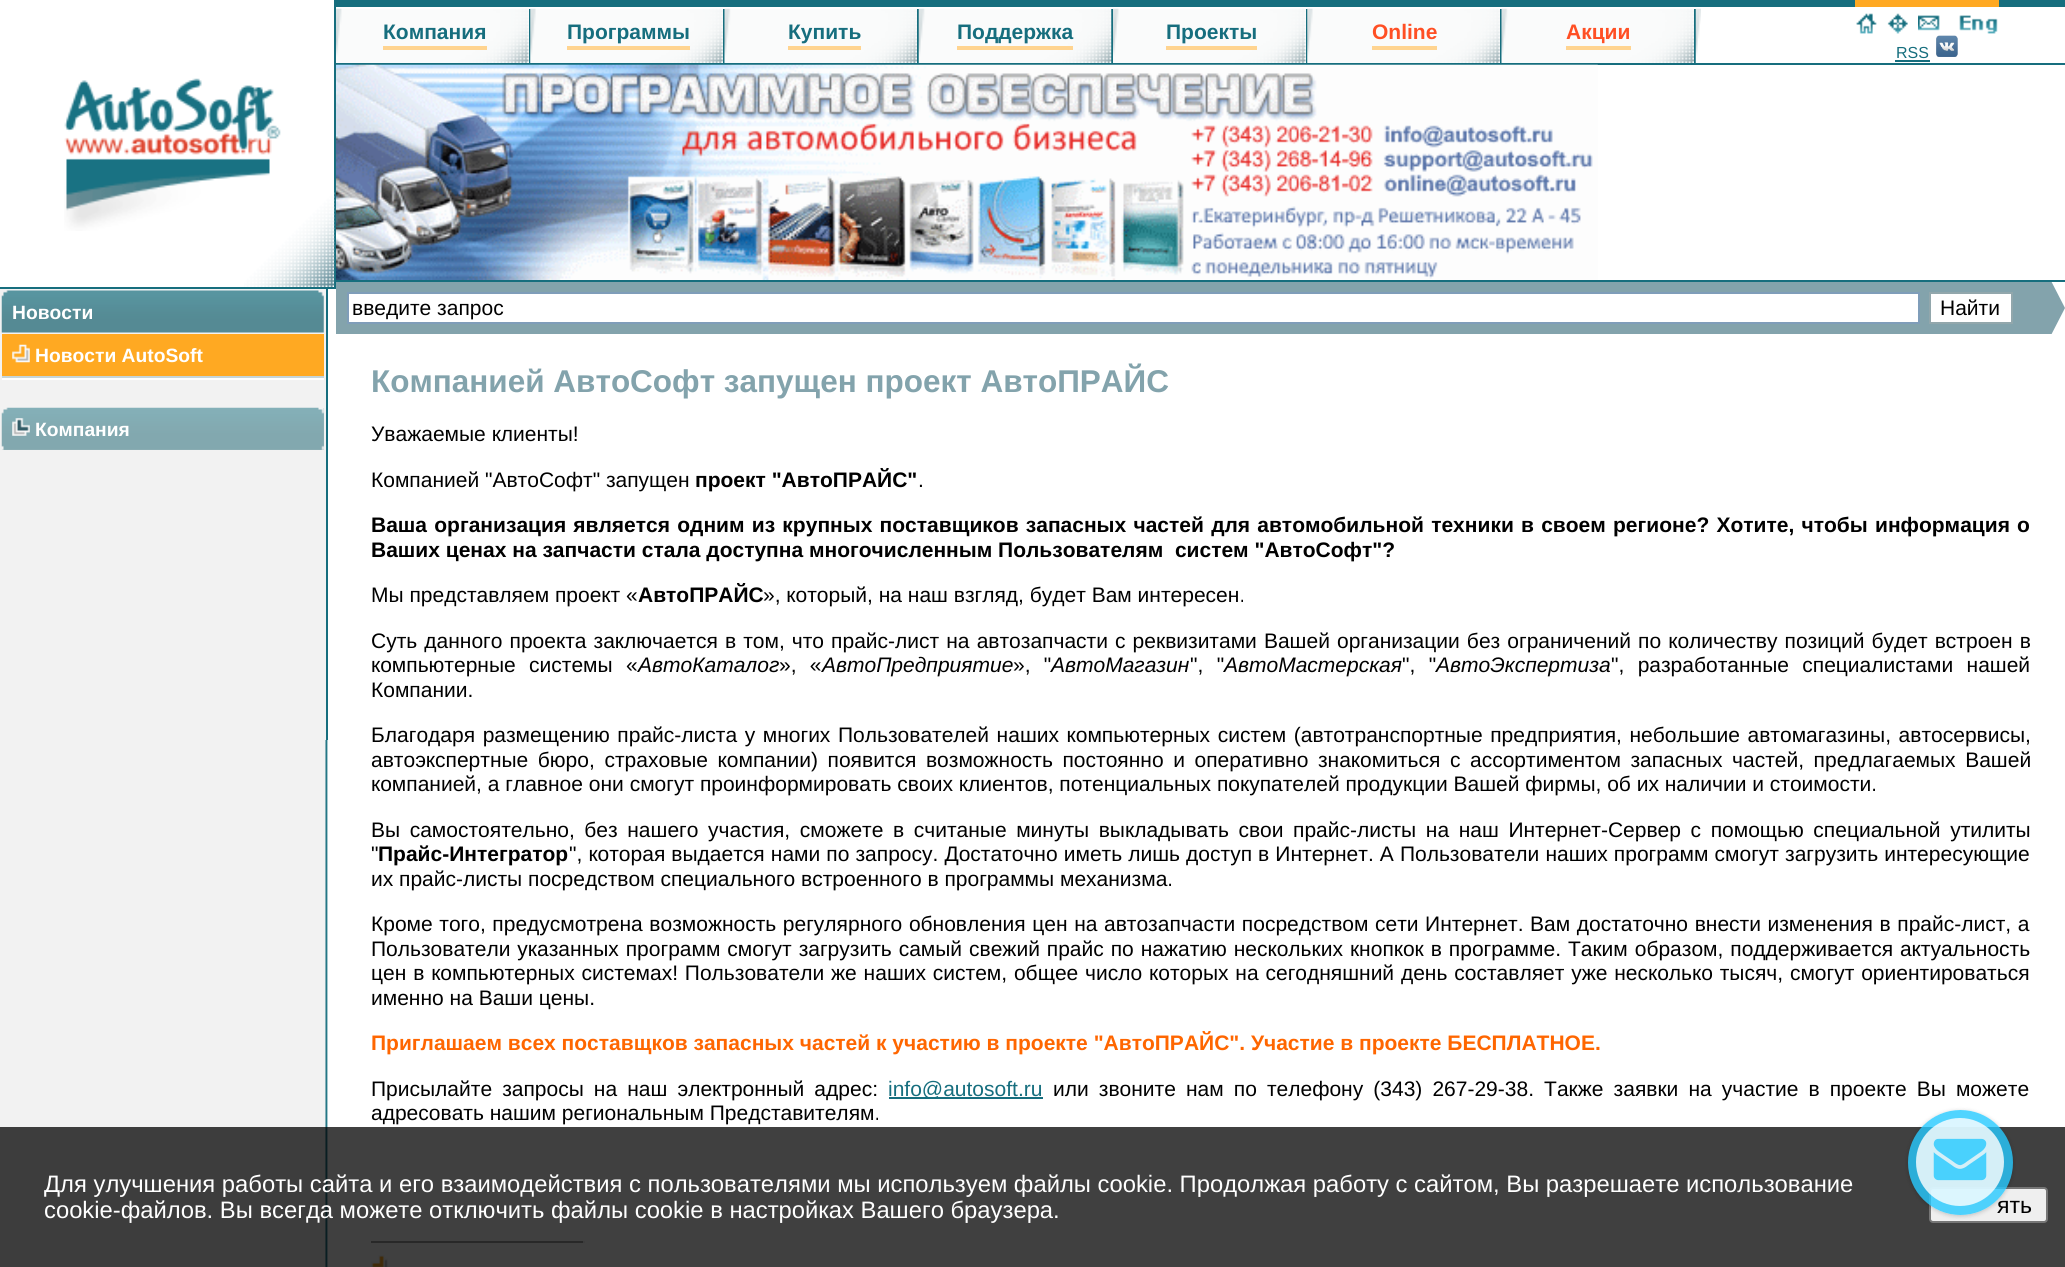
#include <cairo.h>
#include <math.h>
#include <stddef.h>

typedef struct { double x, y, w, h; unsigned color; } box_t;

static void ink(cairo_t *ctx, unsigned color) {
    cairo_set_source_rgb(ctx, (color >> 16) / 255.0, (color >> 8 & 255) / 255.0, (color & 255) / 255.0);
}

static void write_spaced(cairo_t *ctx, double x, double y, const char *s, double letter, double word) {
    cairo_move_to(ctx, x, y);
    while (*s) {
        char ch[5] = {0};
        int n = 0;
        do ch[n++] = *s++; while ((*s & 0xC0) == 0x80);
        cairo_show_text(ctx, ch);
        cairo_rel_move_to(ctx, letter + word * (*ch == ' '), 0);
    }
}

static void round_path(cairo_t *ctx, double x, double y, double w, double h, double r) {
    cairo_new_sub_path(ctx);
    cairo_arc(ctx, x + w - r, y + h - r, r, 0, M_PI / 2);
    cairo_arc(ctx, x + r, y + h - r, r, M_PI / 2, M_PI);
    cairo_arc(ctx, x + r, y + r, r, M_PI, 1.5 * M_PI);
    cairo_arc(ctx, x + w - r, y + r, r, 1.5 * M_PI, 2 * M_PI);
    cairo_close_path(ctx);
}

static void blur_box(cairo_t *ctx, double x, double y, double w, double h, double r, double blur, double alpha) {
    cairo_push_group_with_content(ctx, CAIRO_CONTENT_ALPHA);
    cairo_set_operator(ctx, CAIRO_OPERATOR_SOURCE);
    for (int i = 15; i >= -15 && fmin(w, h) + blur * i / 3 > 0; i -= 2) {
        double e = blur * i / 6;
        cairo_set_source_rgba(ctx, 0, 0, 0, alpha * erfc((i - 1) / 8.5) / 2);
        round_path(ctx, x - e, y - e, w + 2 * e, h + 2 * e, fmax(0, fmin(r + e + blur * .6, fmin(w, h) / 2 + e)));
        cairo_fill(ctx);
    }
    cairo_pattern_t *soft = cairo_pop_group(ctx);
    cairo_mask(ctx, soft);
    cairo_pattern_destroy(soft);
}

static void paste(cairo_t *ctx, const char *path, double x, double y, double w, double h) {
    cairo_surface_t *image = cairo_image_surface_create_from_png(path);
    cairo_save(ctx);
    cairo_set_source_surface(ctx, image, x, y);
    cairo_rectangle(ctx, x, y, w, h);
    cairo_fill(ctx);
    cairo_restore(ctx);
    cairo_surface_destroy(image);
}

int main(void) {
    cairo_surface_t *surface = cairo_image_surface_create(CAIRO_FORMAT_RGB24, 2065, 1267);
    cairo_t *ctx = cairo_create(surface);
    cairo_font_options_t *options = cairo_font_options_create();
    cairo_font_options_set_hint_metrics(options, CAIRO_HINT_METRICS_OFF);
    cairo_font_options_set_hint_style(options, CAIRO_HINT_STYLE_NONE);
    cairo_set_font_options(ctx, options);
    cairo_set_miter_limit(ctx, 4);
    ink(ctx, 0xFFFFFF);
    cairo_paint(ctx);
    paste(ctx, "media/1.png", 0, 740, 328, 527);
    ink(ctx, 0x166E7E);
    cairo_rectangle(ctx, 334, 0, 2, 289);
    cairo_fill(ctx);
    paste(ctx, "media/2.png", 64, 78, 217, 153);
    paste(ctx, "media/3.png", 244, 192, 91, 95);
    cairo_rectangle(ctx, 0, 287, 334, 2);
    cairo_fill(ctx);
    ink(ctx, 0xF2F2F2);
    cairo_rectangle(ctx, 0, 289, 326, 451);
    cairo_fill(ctx);
    paste(ctx, "media/4.png", 1, 290, 323, 43);
    cairo_select_font_face(ctx, "Liberation Sans", CAIRO_FONT_SLANT_NORMAL, CAIRO_FONT_WEIGHT_BOLD);
    cairo_set_font_size(ctx, 19.25);
    ink(ctx, 0xFFFFFF);
    cairo_move_to(ctx, 12, 319);
    cairo_show_text(ctx, "Новости");
    ink(ctx, 0xFFA922);
    cairo_rectangle(ctx, 2, 334, 322, 42);
    cairo_fill(ctx);
    paste(ctx, "media/5.png", 12, 344, 18, 19);
    ink(ctx, 0xFFFFFF);
    cairo_move_to(ctx, 35, 362);
    cairo_show_text(ctx, "Новости AutoSoft");
    {
        static const box_t items[] = {
            {2, 376, 322, 2, 0xC6D5D8},
            {2, 378, 322, 2, 0xFFFFFF},
            {2, 408, 322, 42, 0x9FBABF},
        };
        for (size_t i = 0; i < sizeof items / sizeof *items; i++) {
            ink(ctx, items[i].color);
            cairo_rectangle(ctx, items[i].x, items[i].y, items[i].w, items[i].h);
            cairo_fill(ctx);
        }
    }
    paste(ctx, "media/6.png", 1, 407, 323, 43);
    paste(ctx, "media/7.png", 12, 418, 18, 18);
    ink(ctx, 0xFFFFFF);
    cairo_move_to(ctx, 35, 436);
    cairo_show_text(ctx, "Компания");
    {
        static const box_t items[] = {
            {326, 289, 2, 451, 0x166E7E},
            {336, 0, 1519, 7, 0x166E7E},
            {1855, 0, 144, 7, 0xFFA922},
            {1999, 0, 66, 7, 0x166E7E},
            {529, 9, 2, 54, 0x166E7E},
            {723, 9, 2, 54, 0x166E7E},
            {917, 9, 2, 54, 0x166E7E},
            {1111, 9, 2, 54, 0x166E7E},
            {1306, 9, 2, 54, 0x166E7E},
            {1500, 9, 2, 54, 0x166E7E},
            {1694, 9, 2, 54, 0x166E7E},
        };
        for (size_t i = 0; i < sizeof items / sizeof *items; i++) {
            ink(ctx, items[i].color);
            cairo_rectangle(ctx, items[i].x, items[i].y, items[i].w, items[i].h);
            cairo_fill(ctx);
        }
    }
    paste(ctx, "media/8.png", 1695, 8, 6, 55);
    paste(ctx, "media/9.png", 336, 8, 193, 55);
    ink(ctx, 0xFFD490);
    cairo_rectangle(ctx, 383, 46, 104, 4);
    cairo_fill(ctx);
    cairo_set_font_size(ctx, 21);
    ink(ctx, 0x166E7E);
    cairo_move_to(ctx, 383, 39);
    cairo_show_text(ctx, "Компания");
    paste(ctx, "media/10.png", 530, 8, 193, 55);
    ink(ctx, 0xFFD490);
    cairo_rectangle(ctx, 567, 46, 123, 4);
    cairo_fill(ctx);
    ink(ctx, 0x166E7E);
    cairo_move_to(ctx, 567, 39);
    cairo_show_text(ctx, "Программы");
    paste(ctx, "media/11.png", 724, 8, 193, 55);
    ink(ctx, 0xFFD490);
    cairo_rectangle(ctx, 788, 46, 73, 4);
    cairo_fill(ctx);
    ink(ctx, 0x166E7E);
    cairo_move_to(ctx, 788, 39);
    cairo_show_text(ctx, "Купить");
    paste(ctx, "media/12.png", 918, 8, 194, 55);
    ink(ctx, 0xFFD490);
    cairo_rectangle(ctx, 957, 46, 116, 4);
    cairo_fill(ctx);
    ink(ctx, 0x166E7E);
    cairo_move_to(ctx, 957, 39);
    cairo_show_text(ctx, "Поддержка");
    paste(ctx, "media/13.png", 1113, 8, 193, 55);
    ink(ctx, 0xFFD490);
    cairo_rectangle(ctx, 1166, 46, 91, 4);
    cairo_fill(ctx);
    ink(ctx, 0x166E7E);
    cairo_move_to(ctx, 1166, 39);
    cairo_show_text(ctx, "Проекты");
    paste(ctx, "media/10.png", 1307, 8, 193, 55);
    ink(ctx, 0xFFD490);
    cairo_rectangle(ctx, 1372, 46, 65, 4);
    cairo_fill(ctx);
    ink(ctx, 0xFF4F24);
    cairo_move_to(ctx, 1372, 39);
    cairo_show_text(ctx, "Online");
    paste(ctx, "media/11.png", 1501, 8, 193, 55);
    ink(ctx, 0xFFD490);
    cairo_rectangle(ctx, 1566, 46, 65, 4);
    cairo_fill(ctx);
    ink(ctx, 0xFF4F24);
    cairo_move_to(ctx, 1566, 39);
    cairo_show_text(ctx, "Акции");
    paste(ctx, "media/14.png", 1856, 13, 21, 21);
    paste(ctx, "media/15.png", 1887, 13, 21, 21);
    paste(ctx, "media/16.png", 1918, 15, 22, 16);
    paste(ctx, "media/17.png", 1959, 15, 39, 19);
    cairo_select_font_face(ctx, "Liberation Sans", CAIRO_FONT_SLANT_NORMAL, CAIRO_FONT_WEIGHT_NORMAL);
    cairo_set_font_size(ctx, 16);
    ink(ctx, 0x166E7E);
    cairo_move_to(ctx, 1896, 58);
    cairo_show_text(ctx, "RSS");
    cairo_rectangle(ctx, 1895, 60, 35, 2);
    cairo_fill(ctx);
    paste(ctx, "media/18.png", 1936, 35, 22, 22);
    cairo_rectangle(ctx, 336, 63, 1729, 2);
    cairo_fill(ctx);
    paste(ctx, "media/19.png", 336, 64, 1262, 216);
    cairo_rectangle(ctx, 336, 280, 1729, 2);
    cairo_fill(ctx);
    ink(ctx, 0x83A3AC);
    cairo_rectangle(ctx, 336, 282, 1677, 52);
    cairo_fill(ctx);
    ink(ctx, 0xFFFFFF);
    cairo_rectangle(ctx, 348, 293, 1571, 30);
    cairo_fill_preserve(ctx);
    ink(ctx, 0x7F9DB9);
    cairo_stroke(ctx);
    cairo_set_font_size(ctx, 21);
    ink(ctx, 0x000000);
    cairo_move_to(ctx, 352, 315);
    cairo_show_text(ctx, "введите запрос");
    ink(ctx, 0xFFFFFF);
    cairo_rectangle(ctx, 1930, 293, 82, 30);
    cairo_fill_preserve(ctx);
    ink(ctx, 0x92A7AC);
    cairo_stroke(ctx);
    ink(ctx, 0x000000);
    cairo_move_to(ctx, 1940, 315);
    cairo_show_text(ctx, "Найти");
    cairo_save(ctx);
    cairo_rectangle(ctx, 2013, 282, 52, 52);
    cairo_clip(ctx);
    ink(ctx, 0x83A3AC);
    cairo_new_path(ctx);
    cairo_move_to(ctx, 2012, 411);
    cairo_line_to(ctx, 2012, 205);
    cairo_line_to(ctx, 2065, 308);
    cairo_close_path(ctx);
    cairo_fill(ctx);
    cairo_restore(ctx);
    cairo_select_font_face(ctx, "Liberation Sans", CAIRO_FONT_SLANT_NORMAL, CAIRO_FONT_WEIGHT_BOLD);
    cairo_set_font_size(ctx, 31.5);
    ink(ctx, 0x83A3AC);
    cairo_move_to(ctx, 371, 392);
    cairo_show_text(ctx, "Компанией АвтоСофт запущен проект АвтоПРАЙС");
    cairo_select_font_face(ctx, "Liberation Sans", CAIRO_FONT_SLANT_NORMAL, CAIRO_FONT_WEIGHT_NORMAL);
    cairo_set_font_size(ctx, 21);
    ink(ctx, 0x000000);
    cairo_move_to(ctx, 371, 441);
    cairo_show_text(ctx, "Уважаемые клиенты!");
    cairo_move_to(ctx, 371, 487);
    cairo_show_text(ctx, "Компанией \"АвтоСофт\" запущен");
    cairo_select_font_face(ctx, "Liberation Sans", CAIRO_FONT_SLANT_NORMAL, CAIRO_FONT_WEIGHT_BOLD);
    cairo_move_to(ctx, 695, 487);
    cairo_show_text(ctx, "проект \"АвтоПРАЙС\"");
    cairo_select_font_face(ctx, "Liberation Sans", CAIRO_FONT_SLANT_NORMAL, CAIRO_FONT_WEIGHT_NORMAL);
    cairo_move_to(ctx, 918, 487);
    cairo_show_text(ctx, ".");
    cairo_select_font_face(ctx, "Liberation Sans", CAIRO_FONT_SLANT_NORMAL, CAIRO_FONT_WEIGHT_BOLD);
    write_spaced(ctx, 371, 532, "Ваша организация является одним из крупных поставщиков запасных частей для автомобильной техники в своем регионе? Хотите, чтобы информация о", 0, 1.4);
    cairo_move_to(ctx, 371, 557);
    cairo_show_text(ctx, "Ваших ценах на запчасти стала доступна многочисленным Пользователям  систем \"АвтоСофт\"?");
    cairo_select_font_face(ctx, "Liberation Sans", CAIRO_FONT_SLANT_NORMAL, CAIRO_FONT_WEIGHT_NORMAL);
    cairo_move_to(ctx, 371, 602);
    cairo_show_text(ctx, "Мы представляем проект «");
    cairo_select_font_face(ctx, "Liberation Sans", CAIRO_FONT_SLANT_NORMAL, CAIRO_FONT_WEIGHT_BOLD);
    cairo_move_to(ctx, 638, 602);
    cairo_show_text(ctx, "АвтоПРАЙС");
    cairo_select_font_face(ctx, "Liberation Sans", CAIRO_FONT_SLANT_NORMAL, CAIRO_FONT_WEIGHT_NORMAL);
    cairo_move_to(ctx, 763, 602);
    cairo_show_text(ctx, "», который, на наш взгляд, будет Вам интересен.");
    write_spaced(ctx, 371, 648, "Суть данного проекта заключается в том, что прайс-лист на автозапчасти с реквизитами Вашей организации без ограничений по количеству позиций будет встроен в", 0, 1.25);
    write_spaced(ctx, 371, 672, "компьютерные системы «", 0, 7.5);
    cairo_select_font_face(ctx, "Liberation Sans", CAIRO_FONT_SLANT_ITALIC, CAIRO_FONT_WEIGHT_NORMAL);
    cairo_move_to(ctx, 638, 672);
    cairo_show_text(ctx, "АвтоКаталог");
    cairo_select_font_face(ctx, "Liberation Sans", CAIRO_FONT_SLANT_NORMAL, CAIRO_FONT_WEIGHT_NORMAL);
    write_spaced(ctx, 779, 672, "», «", 0, 7.5);
    cairo_select_font_face(ctx, "Liberation Sans", CAIRO_FONT_SLANT_ITALIC, CAIRO_FONT_WEIGHT_NORMAL);
    cairo_move_to(ctx, 822, 672);
    cairo_show_text(ctx, "АвтоПредприятие");
    cairo_select_font_face(ctx, "Liberation Sans", CAIRO_FONT_SLANT_NORMAL, CAIRO_FONT_WEIGHT_NORMAL);
    write_spaced(ctx, 1013, 672, "», \"", 0, 7.5);
    cairo_select_font_face(ctx, "Liberation Sans", CAIRO_FONT_SLANT_ITALIC, CAIRO_FONT_WEIGHT_NORMAL);
    cairo_move_to(ctx, 1051, 672);
    cairo_show_text(ctx, "АвтоМагазин");
    cairo_select_font_face(ctx, "Liberation Sans", CAIRO_FONT_SLANT_NORMAL, CAIRO_FONT_WEIGHT_NORMAL);
    write_spaced(ctx, 1190, 672, "\", \"", 0, 7.5);
    cairo_select_font_face(ctx, "Liberation Sans", CAIRO_FONT_SLANT_ITALIC, CAIRO_FONT_WEIGHT_NORMAL);
    cairo_move_to(ctx, 1224, 672);
    cairo_show_text(ctx, "АвтоМастерская");
    cairo_select_font_face(ctx, "Liberation Sans", CAIRO_FONT_SLANT_NORMAL, CAIRO_FONT_WEIGHT_NORMAL);
    write_spaced(ctx, 1402, 672, "\", \"", 0, 7.5);
    cairo_select_font_face(ctx, "Liberation Sans", CAIRO_FONT_SLANT_ITALIC, CAIRO_FONT_WEIGHT_NORMAL);
    cairo_move_to(ctx, 1436, 672);
    cairo_show_text(ctx, "АвтоЭкспертиза");
    cairo_select_font_face(ctx, "Liberation Sans", CAIRO_FONT_SLANT_NORMAL, CAIRO_FONT_WEIGHT_NORMAL);
    write_spaced(ctx, 1611, 672, "\", разработанные специалистами нашей", 0, 7.5);
    cairo_move_to(ctx, 371, 697);
    cairo_show_text(ctx, "Компании.");
    write_spaced(ctx, 371, 742, "Благодаря размещению прайс-листа у многих Пользователей наших компьютерных систем (автотранспортные предприятия, небольшие автомагазины, автосервисы,", 0, 1.75);
    write_spaced(ctx, 371, 767, "автоэкспертные бюро, страховые компании) появится возможность постоянно и оперативно знакомиться с ассортиментом запасных частей, предлагаемых Вашей", 0, 3.75);
    cairo_move_to(ctx, 371, 791);
    cairo_show_text(ctx, "компанией, а главное они смогут проинформировать своих клиентов, потенциальных покупателей продукции Вашей фирмы, об их наличии и стоимости.");
    write_spaced(ctx, 371, 837, "Вы самостоятельно, без нашего участия, сможете в считаные минуты выкладывать свои прайс-листы на наш Интернет-Сервер с помощью специальной утилиты", 0, 3.75);
    cairo_move_to(ctx, 371, 861);
    cairo_show_text(ctx, "\"");
    cairo_select_font_face(ctx, "Liberation Sans", CAIRO_FONT_SLANT_NORMAL, CAIRO_FONT_WEIGHT_BOLD);
    cairo_move_to(ctx, 378, 861);
    cairo_show_text(ctx, "Прайс-Интегратор");
    cairo_select_font_face(ctx, "Liberation Sans", CAIRO_FONT_SLANT_NORMAL, CAIRO_FONT_WEIGHT_NORMAL);
    write_spaced(ctx, 569, 861, "\", которая выдается нами по запросу. Достаточно иметь лишь доступ в Интернет. А Пользователи наших программ смогут загрузить интересующие", 0, 0.25);
    cairo_move_to(ctx, 371, 886);
    cairo_show_text(ctx, "их прайс-листы посредством специального встроенного в программы механизма.");
    write_spaced(ctx, 371, 931, "Кроме того, предусмотрена возможность регулярного обновления цен на автозапчасти посредством сети Интернет. Вам достаточно внести изменения в прайс-лист, а", 0, 0.75);
    write_spaced(ctx, 371, 956, "Пользователи указанных программ смогут загрузить самый свежий прайс по нажатию нескольких кнопкок в программе. Таким образом, поддерживается актуальность", 0, 1.1);
    write_spaced(ctx, 371, 980, "цен в компьютерных системах! Пользователи же наших систем, общее число которых на сегодняшний день составляет уже несколько тысяч, смогут ориентироваться", 0, 1);
    cairo_move_to(ctx, 371, 1005);
    cairo_show_text(ctx, "именно на Ваши цены.");
    cairo_select_font_face(ctx, "Liberation Sans", CAIRO_FONT_SLANT_NORMAL, CAIRO_FONT_WEIGHT_BOLD);
    ink(ctx, 0xFF6600);
    cairo_move_to(ctx, 371, 1050);
    cairo_show_text(ctx, "Приглашаем всех поставщков запасных частей к участию в проекте \"АвтоПРАЙС\". Участие в проекте БЕСПЛАТНОЕ.");
    cairo_select_font_face(ctx, "Liberation Sans", CAIRO_FONT_SLANT_NORMAL, CAIRO_FONT_WEIGHT_NORMAL);
    ink(ctx, 0x000000);
    write_spaced(ctx, 371, 1096, "Присылайте запросы на наш электронный адрес:", 0, 4.25);
    ink(ctx, 0x166E7E);
    cairo_rectangle(ctx, 889, 1097, 154, 2);
    cairo_fill(ctx);
    cairo_move_to(ctx, 888, 1096);
    cairo_show_text(ctx, "info@autosoft.ru");
    ink(ctx, 0x000000);
    write_spaced(ctx, 1053, 1096, "или звоните нам по телефону (343) 267-29-38. Также заявки на участие в проекте Вы можете", 0, 4.25);
    cairo_move_to(ctx, 371, 1120);
    cairo_show_text(ctx, "адресовать нашим региональным Представителям.");
    ink(ctx, 0x9F9F9F);
    cairo_rectangle(ctx, 371, 1241, 214, 2);
    cairo_fill(ctx);
    ink(ctx, 0xEEEEEE);
    cairo_rectangle(ctx, 583, 1241, 2, 2);
    cairo_fill(ctx);
    paste(ctx, "media/20.png", 371, 1255, 17, 12);
    cairo_set_source_rgba(ctx, 0, 0, 0, 0.75);
    cairo_rectangle(ctx, 0, 1127, 2065, 140);
    cairo_fill(ctx);
    ink(ctx, 0xEFEFEF);
    round_path(ctx, 1930, 1188, 117, 34, 3);
    cairo_fill_preserve(ctx);
    ink(ctx, 0x767676);
    cairo_stroke(ctx);
    cairo_save(ctx);
    cairo_set_fill_rule(ctx, CAIRO_FILL_RULE_EVEN_ODD);
    cairo_new_path(ctx);
    cairo_move_to(ctx, 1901, 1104);
    cairo_line_to(ctx, 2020, 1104);
    cairo_line_to(ctx, 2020, 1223);
    cairo_line_to(ctx, 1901, 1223);
    cairo_close_path(ctx);
    cairo_move_to(ctx, 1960.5, 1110);
    cairo_curve_to(ctx, 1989.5, 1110, 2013, 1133.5, 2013, 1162.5);
    cairo_curve_to(ctx, 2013, 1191.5, 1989.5, 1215, 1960.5, 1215);
    cairo_curve_to(ctx, 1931.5, 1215, 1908, 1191.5, 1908, 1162.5);
    cairo_curve_to(ctx, 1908, 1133.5, 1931.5, 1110, 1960.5, 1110);
    cairo_close_path(ctx);
    cairo_clip(ctx);
    ink(ctx, 0x000000);
    blur_box(ctx, 1908, 1111, 105, 105, 52.5, 2, 0.11);
    cairo_restore(ctx);
    cairo_save(ctx);
    cairo_set_fill_rule(ctx, CAIRO_FILL_RULE_EVEN_ODD);
    cairo_new_path(ctx);
    cairo_move_to(ctx, 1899, 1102);
    cairo_line_to(ctx, 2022, 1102);
    cairo_line_to(ctx, 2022, 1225);
    cairo_line_to(ctx, 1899, 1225);
    cairo_close_path(ctx);
    cairo_move_to(ctx, 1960.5, 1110);
    cairo_curve_to(ctx, 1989.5, 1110, 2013, 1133.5, 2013, 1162.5);
    cairo_curve_to(ctx, 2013, 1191.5, 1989.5, 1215, 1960.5, 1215);
    cairo_curve_to(ctx, 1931.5, 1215, 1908, 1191.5, 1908, 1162.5);
    cairo_curve_to(ctx, 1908, 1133.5, 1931.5, 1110, 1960.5, 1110);
    cairo_close_path(ctx);
    cairo_clip(ctx);
    ink(ctx, 0x000000);
    blur_box(ctx, 1908, 1111, 105, 105, 52.5, 2.5, 0.1);
    cairo_restore(ctx);
    cairo_set_font_size(ctx, 23);
    ink(ctx, 0x000000);
    cairo_move_to(ctx, 1997, 1213);
    cairo_show_text(ctx, "ять");
    cairo_set_source_rgba(ctx, 0.149, 0.788, 1, 0.8);
    cairo_new_path(ctx);
    cairo_arc(ctx, 1960.5, 1162.5, 52.5, 0, 2 * M_PI);
    cairo_fill(ctx);
    cairo_set_source_rgba(ctx, 1, 1, 1, 0.8);
    cairo_arc(ctx, 1960, 1162, 44, 0, 2 * M_PI);
    cairo_fill(ctx);
    paste(ctx, "media/21.png", 1933, 1138, 54, 43);
    cairo_set_font_size(ctx, 23.8);
    ink(ctx, 0xFFFFFF);
    cairo_move_to(ctx, 44, 1192);
    cairo_show_text(ctx, "Для улучшения работы сайта и его взаимодействия с пользователями мы используем файлы cookie. Продолжая работу с сайтом, Вы разрешаете использование");
    cairo_move_to(ctx, 44, 1218);
    cairo_show_text(ctx, "cookie-файлов. Вы всегда можете отключить файлы cookie в настройках Вашего браузера.");
    cairo_surface_write_to_png(surface, "image.png");
    cairo_font_options_destroy(options);
    cairo_destroy(ctx);
    cairo_surface_destroy(surface);
    return 0;
}
